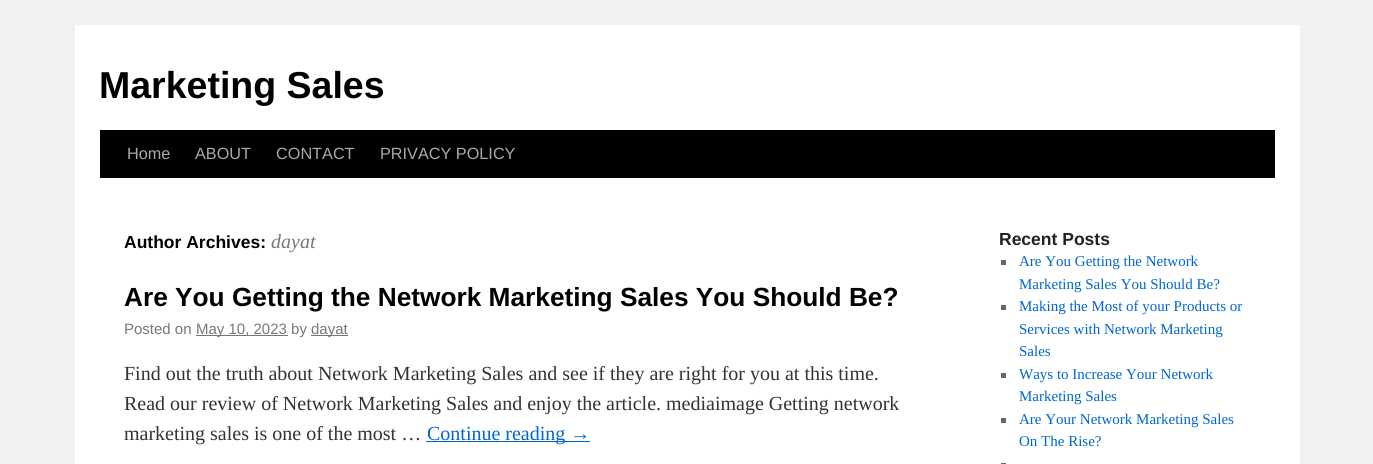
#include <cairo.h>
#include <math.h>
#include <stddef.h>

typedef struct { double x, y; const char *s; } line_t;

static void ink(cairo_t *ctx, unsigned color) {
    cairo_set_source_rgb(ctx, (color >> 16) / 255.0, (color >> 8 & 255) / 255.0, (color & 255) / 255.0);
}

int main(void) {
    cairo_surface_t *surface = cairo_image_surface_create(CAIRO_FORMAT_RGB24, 1373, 464);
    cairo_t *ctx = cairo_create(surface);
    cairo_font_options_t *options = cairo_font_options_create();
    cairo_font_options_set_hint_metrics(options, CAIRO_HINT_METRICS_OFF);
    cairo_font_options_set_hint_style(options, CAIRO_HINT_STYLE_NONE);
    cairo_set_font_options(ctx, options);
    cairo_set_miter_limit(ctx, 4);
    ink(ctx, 0xF1F1F1);
    cairo_paint(ctx);
    ink(ctx, 0xFFFFFF);
    cairo_rectangle(ctx, 75, 25, 1225, 439);
    cairo_fill(ctx);
    cairo_select_font_face(ctx, "Liberation Sans", CAIRO_FONT_SLANT_NORMAL, CAIRO_FONT_WEIGHT_BOLD);
    cairo_set_font_size(ctx, 37.5);
    ink(ctx, 0x000000);
    cairo_move_to(ctx, 99, 98);
    cairo_show_text(ctx, "Marketing Sales");
    cairo_rectangle(ctx, 100, 130, 1175, 48);
    cairo_fill(ctx);
    cairo_select_font_face(ctx, "Liberation Sans", CAIRO_FONT_SLANT_NORMAL, CAIRO_FONT_WEIGHT_NORMAL);
    cairo_set_font_size(ctx, 16.25);
    ink(ctx, 0xAAAAAA);
    {
        static const line_t items[] = {
            {127, 159, "Home"},
            {195, 159, "ABOUT"},
            {276, 159, "CONTACT"},
            {380, 159, "PRIVACY POLICY"},
        };
        for (size_t i = 0; i < sizeof items / sizeof *items; i++) {
            cairo_move_to(ctx, items[i].x, items[i].y);
            cairo_show_text(ctx, items[i].s);
        }
    }
    cairo_select_font_face(ctx, "Liberation Sans", CAIRO_FONT_SLANT_NORMAL, CAIRO_FONT_WEIGHT_BOLD);
    cairo_set_font_size(ctx, 17.5);
    ink(ctx, 0x000000);
    cairo_move_to(ctx, 124, 248);
    cairo_show_text(ctx, "Author Archives:");
    cairo_select_font_face(ctx, "Liberation Serif", CAIRO_FONT_SLANT_ITALIC, CAIRO_FONT_WEIGHT_NORMAL);
    cairo_set_font_size(ctx, 20);
    ink(ctx, 0x777777);
    cairo_move_to(ctx, 271, 248);
    cairo_show_text(ctx, "dayat");
    cairo_select_font_face(ctx, "Liberation Sans", CAIRO_FONT_SLANT_NORMAL, CAIRO_FONT_WEIGHT_BOLD);
    cairo_set_font_size(ctx, 26.25);
    ink(ctx, 0x000000);
    cairo_move_to(ctx, 124, 306);
    cairo_show_text(ctx, "Are You Getting the Network Marketing Sales You Should Be?");
    cairo_select_font_face(ctx, "Liberation Sans", CAIRO_FONT_SLANT_NORMAL, CAIRO_FONT_WEIGHT_NORMAL);
    cairo_set_font_size(ctx, 15);
    ink(ctx, 0x777777);
    cairo_move_to(ctx, 124, 334);
    cairo_show_text(ctx, "Posted on");
    cairo_rectangle(ctx, 196, 335, 92, 1);
    cairo_fill(ctx);
    cairo_move_to(ctx, 196, 334);
    cairo_show_text(ctx, "May 10, 2023 by");
    cairo_rectangle(ctx, 311, 335, 37, 1);
    cairo_fill(ctx);
    cairo_move_to(ctx, 311, 334);
    cairo_show_text(ctx, "dayat");
    cairo_select_font_face(ctx, "Liberation Serif", CAIRO_FONT_SLANT_NORMAL, CAIRO_FONT_WEIGHT_NORMAL);
    cairo_set_font_size(ctx, 20);
    ink(ctx, 0x333333);
    {
        static const line_t items[] = {
            {124, 380, "Find out the truth about Network Marketing Sales and see if they are right for you at this time."},
            {124, 410, "Read our review of Network Marketing Sales and enjoy the article. mediaimage Getting network"},
            {124, 440, "marketing sales is one of the most …"},
        };
        for (size_t i = 0; i < sizeof items / sizeof *items; i++) {
            cairo_move_to(ctx, items[i].x, items[i].y);
            cairo_show_text(ctx, items[i].s);
        }
    }
    ink(ctx, 0x0066CC);
    cairo_rectangle(ctx, 426, 441, 164, 1);
    cairo_fill(ctx);
    cairo_move_to(ctx, 427, 440);
    cairo_show_text(ctx, "Continue reading →");
    cairo_select_font_face(ctx, "Liberation Sans", CAIRO_FONT_SLANT_NORMAL, CAIRO_FONT_WEIGHT_BOLD);
    cairo_set_font_size(ctx, 17.5);
    ink(ctx, 0x222222);
    cairo_move_to(ctx, 999, 245);
    cairo_show_text(ctx, "Recent Posts");
    ink(ctx, 0x666666);
    cairo_rectangle(ctx, 1001, 260, 5, 5);
    cairo_fill(ctx);
    cairo_select_font_face(ctx, "Liberation Serif", CAIRO_FONT_SLANT_NORMAL, CAIRO_FONT_WEIGHT_NORMAL);
    cairo_set_font_size(ctx, 15);
    ink(ctx, 0x0066CC);
    cairo_move_to(ctx, 1019, 266);
    cairo_show_text(ctx, "Are You Getting the Network");
    cairo_move_to(ctx, 1019, 289);
    cairo_show_text(ctx, "Marketing Sales You Should Be?");
    ink(ctx, 0x666666);
    cairo_rectangle(ctx, 1001, 305, 5, 5);
    cairo_fill(ctx);
    ink(ctx, 0x0066CC);
    {
        static const line_t items[] = {
            {1019, 311, "Making the Most of your Products or"},
            {1019, 334, "Services with Network Marketing"},
            {1019, 356, "Sales"},
        };
        for (size_t i = 0; i < sizeof items / sizeof *items; i++) {
            cairo_move_to(ctx, items[i].x, items[i].y);
            cairo_show_text(ctx, items[i].s);
        }
    }
    ink(ctx, 0x666666);
    cairo_rectangle(ctx, 1001, 373, 5, 5);
    cairo_fill(ctx);
    ink(ctx, 0x0066CC);
    cairo_move_to(ctx, 1019, 379);
    cairo_show_text(ctx, "Ways to Increase Your Network");
    cairo_move_to(ctx, 1019, 401);
    cairo_show_text(ctx, "Marketing Sales");
    ink(ctx, 0x666666);
    cairo_rectangle(ctx, 1001, 418, 5, 5);
    cairo_fill(ctx);
    ink(ctx, 0x0066CC);
    cairo_move_to(ctx, 1019, 424);
    cairo_show_text(ctx, "Are Your Network Marketing Sales");
    cairo_move_to(ctx, 1019, 446);
    cairo_show_text(ctx, "On The Rise?");
    ink(ctx, 0x666666);
    cairo_rectangle(ctx, 1001, 463, 5, 1);
    cairo_fill(ctx);
    cairo_surface_write_to_png(surface, "image.png");
    cairo_font_options_destroy(options);
    cairo_destroy(ctx);
    cairo_surface_destroy(surface);
    return 0;
}
